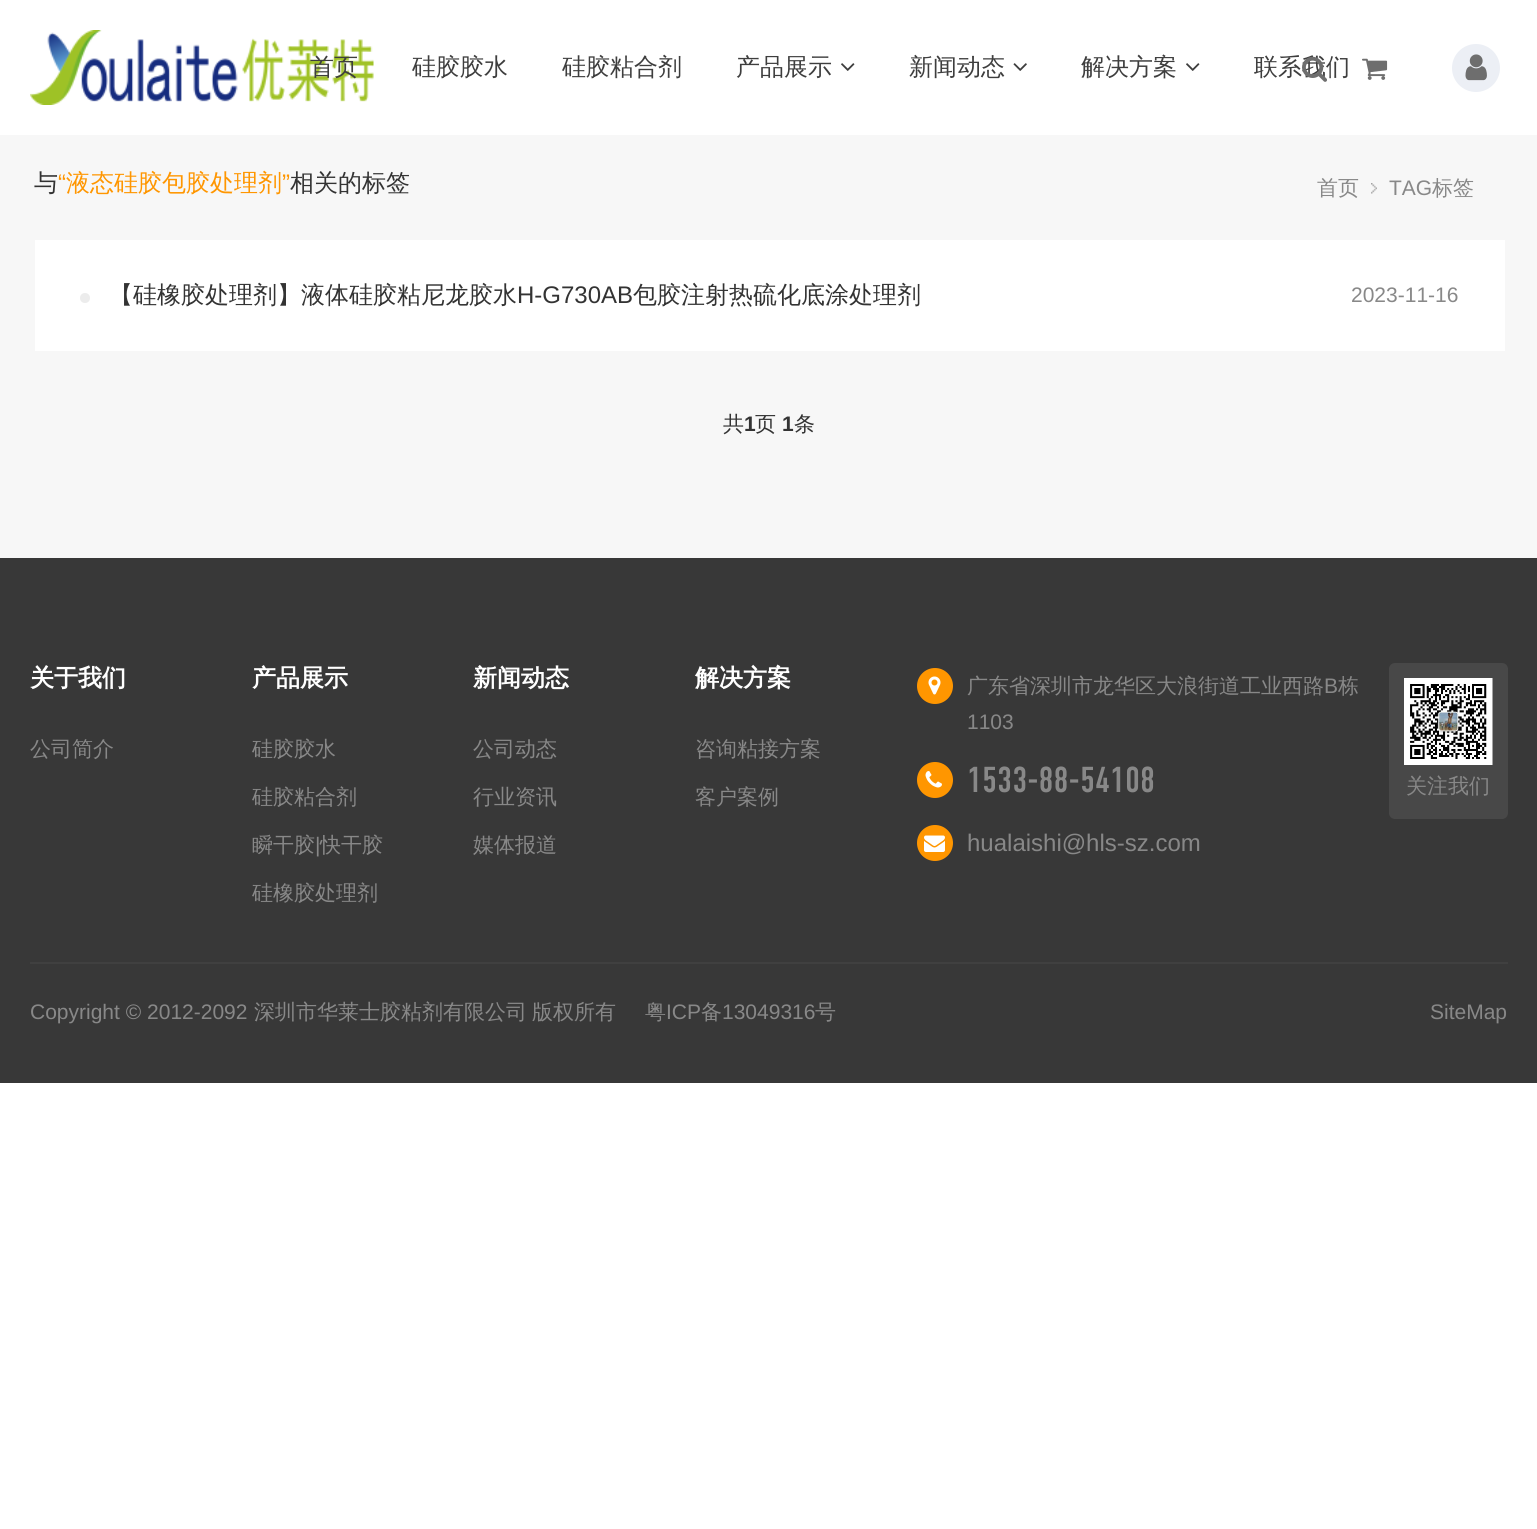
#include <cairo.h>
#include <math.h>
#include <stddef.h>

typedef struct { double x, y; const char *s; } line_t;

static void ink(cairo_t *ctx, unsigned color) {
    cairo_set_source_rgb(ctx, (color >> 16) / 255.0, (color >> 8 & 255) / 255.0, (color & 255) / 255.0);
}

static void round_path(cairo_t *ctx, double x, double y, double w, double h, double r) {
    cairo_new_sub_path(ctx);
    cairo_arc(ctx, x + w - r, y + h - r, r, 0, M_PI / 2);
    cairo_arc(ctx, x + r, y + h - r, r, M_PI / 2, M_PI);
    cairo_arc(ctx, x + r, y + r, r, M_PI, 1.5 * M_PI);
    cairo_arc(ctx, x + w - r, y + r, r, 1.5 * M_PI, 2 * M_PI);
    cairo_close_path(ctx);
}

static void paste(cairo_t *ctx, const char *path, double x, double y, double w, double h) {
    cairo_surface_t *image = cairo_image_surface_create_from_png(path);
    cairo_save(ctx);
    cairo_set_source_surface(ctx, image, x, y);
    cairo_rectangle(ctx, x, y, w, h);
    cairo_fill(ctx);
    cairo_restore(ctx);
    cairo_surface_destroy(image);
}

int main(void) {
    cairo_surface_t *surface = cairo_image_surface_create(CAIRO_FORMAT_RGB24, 1537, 1529);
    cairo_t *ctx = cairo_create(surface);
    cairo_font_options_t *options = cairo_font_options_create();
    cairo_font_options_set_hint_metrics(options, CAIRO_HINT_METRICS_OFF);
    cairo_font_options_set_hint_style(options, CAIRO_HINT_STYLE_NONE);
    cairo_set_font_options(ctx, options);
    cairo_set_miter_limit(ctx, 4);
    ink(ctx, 0xFFFFFF);
    cairo_paint(ctx);
    paste(ctx, "media/1.png", 30, 30, 344, 75);
    cairo_select_font_face(ctx, "WenQuanYi Zen Hei Medium", CAIRO_FONT_SLANT_NORMAL, CAIRO_FONT_WEIGHT_NORMAL);
    cairo_set_font_size(ctx, 24);
    ink(ctx, 0x3E3E3E);
    {
        static const line_t items[] = {
            {310, 75, "首页"},
            {412, 75, "硅胶胶水"},
            {562, 75, "硅胶粘合剂"},
            {736, 75, "产品展示"},
        };
        for (size_t i = 0; i < sizeof items / sizeof *items; i++) {
            cairo_move_to(ctx, items[i].x, items[i].y);
            cairo_show_text(ctx, items[i].s);
        }
    }
    paste(ctx, "media/2.png", 841, 63, 14, 8);
    cairo_move_to(ctx, 909, 75);
    cairo_show_text(ctx, "新闻动态");
    paste(ctx, "media/3.png", 1013, 63, 14, 8);
    cairo_move_to(ctx, 1081, 75);
    cairo_show_text(ctx, "解决方案");
    paste(ctx, "media/2.png", 1186, 63, 14, 8);
    cairo_move_to(ctx, 1254, 75);
    cairo_show_text(ctx, "联系我们");
    paste(ctx, "media/4.png", 1302, 56, 25, 26);
    paste(ctx, "media/5.png", 1362, 58, 26, 22);
    ink(ctx, 0xECEFF5);
    cairo_arc(ctx, 1476, 68, 24, 0, 2 * M_PI);
    cairo_fill(ctx);
    paste(ctx, "media/6.png", 1465, 54, 22, 27);
    ink(ctx, 0xF7F7F7);
    cairo_rectangle(ctx, 0, 135, 1537, 423);
    cairo_fill(ctx);
    ink(ctx, 0x333333);
    cairo_move_to(ctx, 34, 191);
    cairo_show_text(ctx, "与");
    cairo_select_font_face(ctx, "Liberation Sans", CAIRO_FONT_SLANT_NORMAL, CAIRO_FONT_WEIGHT_NORMAL);
    ink(ctx, 0xFF9600);
    cairo_move_to(ctx, 58, 191);
    cairo_show_text(ctx, "“");
    cairo_select_font_face(ctx, "WenQuanYi Zen Hei Medium", CAIRO_FONT_SLANT_NORMAL, CAIRO_FONT_WEIGHT_NORMAL);
    cairo_move_to(ctx, 66, 191);
    cairo_show_text(ctx, "液态硅胶包胶处理剂");
    cairo_select_font_face(ctx, "Liberation Sans", CAIRO_FONT_SLANT_NORMAL, CAIRO_FONT_WEIGHT_NORMAL);
    cairo_move_to(ctx, 282, 191);
    cairo_show_text(ctx, "”");
    cairo_select_font_face(ctx, "WenQuanYi Zen Hei Medium", CAIRO_FONT_SLANT_NORMAL, CAIRO_FONT_WEIGHT_NORMAL);
    ink(ctx, 0x333333);
    cairo_move_to(ctx, 290, 191);
    cairo_show_text(ctx, "相关的标签");
    cairo_set_font_size(ctx, 21);
    ink(ctx, 0x888888);
    cairo_move_to(ctx, 1317, 195);
    cairo_show_text(ctx, "首页");
    paste(ctx, "media/7.png", 1371, 183, 6, 11);
    cairo_select_font_face(ctx, "Liberation Sans", CAIRO_FONT_SLANT_NORMAL, CAIRO_FONT_WEIGHT_NORMAL);
    cairo_move_to(ctx, 1389, 195);
    cairo_show_text(ctx, "TAG");
    cairo_select_font_face(ctx, "WenQuanYi Zen Hei Medium", CAIRO_FONT_SLANT_NORMAL, CAIRO_FONT_WEIGHT_NORMAL);
    cairo_move_to(ctx, 1432, 195);
    cairo_show_text(ctx, "标签");
    ink(ctx, 0xFFFFFF);
    cairo_rectangle(ctx, 35, 240, 1470, 111);
    cairo_fill(ctx);
    ink(ctx, 0xECECEC);
    cairo_arc(ctx, 85, 298, 5, 0, 2 * M_PI);
    cairo_fill(ctx);
    cairo_set_font_size(ctx, 24);
    ink(ctx, 0x333333);
    cairo_move_to(ctx, 109, 303);
    cairo_show_text(ctx, "【硅橡胶处理剂】液体硅胶粘尼龙胶水");
    cairo_select_font_face(ctx, "Liberation Sans", CAIRO_FONT_SLANT_NORMAL, CAIRO_FONT_WEIGHT_NORMAL);
    cairo_move_to(ctx, 517, 303);
    cairo_show_text(ctx, "H-G730AB");
    cairo_select_font_face(ctx, "WenQuanYi Zen Hei Medium", CAIRO_FONT_SLANT_NORMAL, CAIRO_FONT_WEIGHT_NORMAL);
    cairo_move_to(ctx, 633, 303);
    cairo_show_text(ctx, "包胶注射热硫化底涂处理剂");
    cairo_select_font_face(ctx, "Liberation Sans", CAIRO_FONT_SLANT_NORMAL, CAIRO_FONT_WEIGHT_NORMAL);
    cairo_set_font_size(ctx, 21);
    ink(ctx, 0x888888);
    cairo_move_to(ctx, 1351, 302);
    cairo_show_text(ctx, "2023-11-16");
    cairo_select_font_face(ctx, "WenQuanYi Zen Hei Medium", CAIRO_FONT_SLANT_NORMAL, CAIRO_FONT_WEIGHT_NORMAL);
    ink(ctx, 0x333333);
    cairo_move_to(ctx, 723, 431);
    cairo_show_text(ctx, "共");
    cairo_select_font_face(ctx, "Liberation Sans", CAIRO_FONT_SLANT_NORMAL, CAIRO_FONT_WEIGHT_BOLD);
    cairo_move_to(ctx, 744, 431);
    cairo_show_text(ctx, "1");
    cairo_select_font_face(ctx, "WenQuanYi Zen Hei Medium", CAIRO_FONT_SLANT_NORMAL, CAIRO_FONT_WEIGHT_NORMAL);
    cairo_move_to(ctx, 755, 431);
    cairo_show_text(ctx, "页");
    cairo_select_font_face(ctx, "Liberation Sans", CAIRO_FONT_SLANT_NORMAL, CAIRO_FONT_WEIGHT_BOLD);
    cairo_move_to(ctx, 782, 431);
    cairo_show_text(ctx, "1");
    cairo_select_font_face(ctx, "WenQuanYi Zen Hei Medium", CAIRO_FONT_SLANT_NORMAL, CAIRO_FONT_WEIGHT_NORMAL);
    cairo_move_to(ctx, 794, 431);
    cairo_show_text(ctx, "条");
    ink(ctx, 0x383838);
    cairo_rectangle(ctx, 0, 558, 1537, 525);
    cairo_fill(ctx);
    cairo_select_font_face(ctx, "WenQuanYi Zen Hei", CAIRO_FONT_SLANT_NORMAL, CAIRO_FONT_WEIGHT_BOLD);
    cairo_set_font_size(ctx, 24);
    ink(ctx, 0xFFFFFF);
    cairo_move_to(ctx, 30, 686);
    cairo_show_text(ctx, "关于我们");
    cairo_select_font_face(ctx, "WenQuanYi Zen Hei Medium", CAIRO_FONT_SLANT_NORMAL, CAIRO_FONT_WEIGHT_NORMAL);
    cairo_set_font_size(ctx, 21);
    ink(ctx, 0x888888);
    cairo_move_to(ctx, 30, 756);
    cairo_show_text(ctx, "公司简介");
    cairo_select_font_face(ctx, "WenQuanYi Zen Hei", CAIRO_FONT_SLANT_NORMAL, CAIRO_FONT_WEIGHT_BOLD);
    cairo_set_font_size(ctx, 24);
    ink(ctx, 0xFFFFFF);
    cairo_move_to(ctx, 252, 686);
    cairo_show_text(ctx, "产品展示");
    cairo_select_font_face(ctx, "WenQuanYi Zen Hei Medium", CAIRO_FONT_SLANT_NORMAL, CAIRO_FONT_WEIGHT_NORMAL);
    cairo_set_font_size(ctx, 21);
    ink(ctx, 0x888888);
    {
        static const line_t items[] = {
            {252, 756, "硅胶胶水"},
            {252, 804, "硅胶粘合剂"},
            {252, 852, "瞬干胶"},
        };
        for (size_t i = 0; i < sizeof items / sizeof *items; i++) {
            cairo_move_to(ctx, items[i].x, items[i].y);
            cairo_show_text(ctx, items[i].s);
        }
    }
    cairo_select_font_face(ctx, "Liberation Sans", CAIRO_FONT_SLANT_NORMAL, CAIRO_FONT_WEIGHT_NORMAL);
    cairo_move_to(ctx, 315, 852);
    cairo_show_text(ctx, "|");
    cairo_select_font_face(ctx, "WenQuanYi Zen Hei Medium", CAIRO_FONT_SLANT_NORMAL, CAIRO_FONT_WEIGHT_NORMAL);
    cairo_move_to(ctx, 320, 852);
    cairo_show_text(ctx, "快干胶");
    cairo_move_to(ctx, 252, 900);
    cairo_show_text(ctx, "硅橡胶处理剂");
    cairo_select_font_face(ctx, "WenQuanYi Zen Hei", CAIRO_FONT_SLANT_NORMAL, CAIRO_FONT_WEIGHT_BOLD);
    cairo_set_font_size(ctx, 24);
    ink(ctx, 0xFFFFFF);
    cairo_move_to(ctx, 473, 686);
    cairo_show_text(ctx, "新闻动态");
    cairo_select_font_face(ctx, "WenQuanYi Zen Hei Medium", CAIRO_FONT_SLANT_NORMAL, CAIRO_FONT_WEIGHT_NORMAL);
    cairo_set_font_size(ctx, 21);
    ink(ctx, 0x888888);
    {
        static const line_t items[] = {
            {473, 756, "公司动态"},
            {473, 804, "行业资讯"},
            {473, 852, "媒体报道"},
        };
        for (size_t i = 0; i < sizeof items / sizeof *items; i++) {
            cairo_move_to(ctx, items[i].x, items[i].y);
            cairo_show_text(ctx, items[i].s);
        }
    }
    cairo_select_font_face(ctx, "WenQuanYi Zen Hei", CAIRO_FONT_SLANT_NORMAL, CAIRO_FONT_WEIGHT_BOLD);
    cairo_set_font_size(ctx, 24);
    ink(ctx, 0xFFFFFF);
    cairo_move_to(ctx, 695, 686);
    cairo_show_text(ctx, "解决方案");
    cairo_select_font_face(ctx, "WenQuanYi Zen Hei Medium", CAIRO_FONT_SLANT_NORMAL, CAIRO_FONT_WEIGHT_NORMAL);
    cairo_set_font_size(ctx, 21);
    ink(ctx, 0x888888);
    cairo_move_to(ctx, 695, 756);
    cairo_show_text(ctx, "咨询粘接方案");
    cairo_move_to(ctx, 695, 804);
    cairo_show_text(ctx, "客户案例");
    ink(ctx, 0xFF9600);
    cairo_new_path(ctx);
    cairo_arc(ctx, 935, 686, 18, 0, 2 * M_PI);
    cairo_fill(ctx);
    paste(ctx, "media/8.png", 928, 676, 13, 19);
    ink(ctx, 0x888888);
    cairo_move_to(ctx, 967, 693);
    cairo_show_text(ctx, "广东省深圳市龙华区大浪街道工业西路");
    cairo_select_font_face(ctx, "Liberation Sans", CAIRO_FONT_SLANT_NORMAL, CAIRO_FONT_WEIGHT_NORMAL);
    cairo_move_to(ctx, 1324, 693);
    cairo_show_text(ctx, "B");
    cairo_select_font_face(ctx, "WenQuanYi Zen Hei Medium", CAIRO_FONT_SLANT_NORMAL, CAIRO_FONT_WEIGHT_NORMAL);
    cairo_move_to(ctx, 1338, 693);
    cairo_show_text(ctx, "栋");
    cairo_select_font_face(ctx, "Liberation Sans", CAIRO_FONT_SLANT_NORMAL, CAIRO_FONT_WEIGHT_NORMAL);
    cairo_move_to(ctx, 967, 729);
    cairo_show_text(ctx, "1103");
    ink(ctx, 0xFF9600);
    cairo_new_path(ctx);
    cairo_arc(ctx, 935, 780, 18, 0, 2 * M_PI);
    cairo_fill(ctx);
    paste(ctx, "media/9.png", 925, 771, 17, 17);
    cairo_select_font_face(ctx, "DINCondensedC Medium", CAIRO_FONT_SLANT_NORMAL, CAIRO_FONT_WEIGHT_NORMAL);
    cairo_set_font_size(ctx, 36);
    ink(ctx, 0x888888);
    cairo_move_to(ctx, 967, 792);
    cairo_show_text(ctx, "1533-88-54108");
    ink(ctx, 0xFF9600);
    cairo_new_path(ctx);
    cairo_arc(ctx, 935, 843, 18, 0, 2 * M_PI);
    cairo_fill(ctx);
    paste(ctx, "media/10.png", 924, 835, 21, 17);
    cairo_select_font_face(ctx, "Liberation Sans", CAIRO_FONT_SLANT_NORMAL, CAIRO_FONT_WEIGHT_NORMAL);
    cairo_set_font_size(ctx, 24);
    ink(ctx, 0x888888);
    cairo_move_to(ctx, 967, 851);
    cairo_show_text(ctx, "hualaishi@hls-sz.com");
    ink(ctx, 0x484848);
    round_path(ctx, 1389, 663, 119, 156, 6);
    cairo_fill(ctx);
    paste(ctx, "media/11.png", 1404, 678, 89, 87);
    cairo_select_font_face(ctx, "WenQuanYi Zen Hei Medium", CAIRO_FONT_SLANT_NORMAL, CAIRO_FONT_WEIGHT_NORMAL);
    cairo_set_font_size(ctx, 21);
    ink(ctx, 0x888888);
    cairo_move_to(ctx, 1406, 793);
    cairo_show_text(ctx, "关注我们");
    ink(ctx, 0x404040);
    cairo_rectangle(ctx, 30, 962, 1478, 2);
    cairo_fill(ctx);
    cairo_select_font_face(ctx, "Liberation Sans", CAIRO_FONT_SLANT_NORMAL, CAIRO_FONT_WEIGHT_NORMAL);
    ink(ctx, 0x888888);
    cairo_move_to(ctx, 30, 1019);
    cairo_show_text(ctx, "Copyright © 2012-2092");
    cairo_select_font_face(ctx, "WenQuanYi Zen Hei Medium", CAIRO_FONT_SLANT_NORMAL, CAIRO_FONT_WEIGHT_NORMAL);
    {
        static const line_t items[] = {
            {254, 1019, "深圳市华莱士胶粘剂有限公司"},
            {532, 1019, "版权所有"},
            {645, 1019, "粤"},
        };
        for (size_t i = 0; i < sizeof items / sizeof *items; i++) {
            cairo_move_to(ctx, items[i].x, items[i].y);
            cairo_show_text(ctx, items[i].s);
        }
    }
    cairo_select_font_face(ctx, "Liberation Sans", CAIRO_FONT_SLANT_NORMAL, CAIRO_FONT_WEIGHT_NORMAL);
    cairo_move_to(ctx, 666, 1019);
    cairo_show_text(ctx, "ICP");
    cairo_select_font_face(ctx, "WenQuanYi Zen Hei Medium", CAIRO_FONT_SLANT_NORMAL, CAIRO_FONT_WEIGHT_NORMAL);
    cairo_move_to(ctx, 701, 1019);
    cairo_show_text(ctx, "备");
    cairo_select_font_face(ctx, "Liberation Sans", CAIRO_FONT_SLANT_NORMAL, CAIRO_FONT_WEIGHT_NORMAL);
    cairo_move_to(ctx, 722, 1019);
    cairo_show_text(ctx, "13049316");
    cairo_select_font_face(ctx, "WenQuanYi Zen Hei Medium", CAIRO_FONT_SLANT_NORMAL, CAIRO_FONT_WEIGHT_NORMAL);
    cairo_move_to(ctx, 815, 1019);
    cairo_show_text(ctx, "号");
    cairo_select_font_face(ctx, "Liberation Sans", CAIRO_FONT_SLANT_NORMAL, CAIRO_FONT_WEIGHT_NORMAL);
    cairo_move_to(ctx, 1430, 1019);
    cairo_show_text(ctx, "SiteMap");
    cairo_surface_write_to_png(surface, "image.png");
    cairo_font_options_destroy(options);
    cairo_destroy(ctx);
    cairo_surface_destroy(surface);
    return 0;
}
